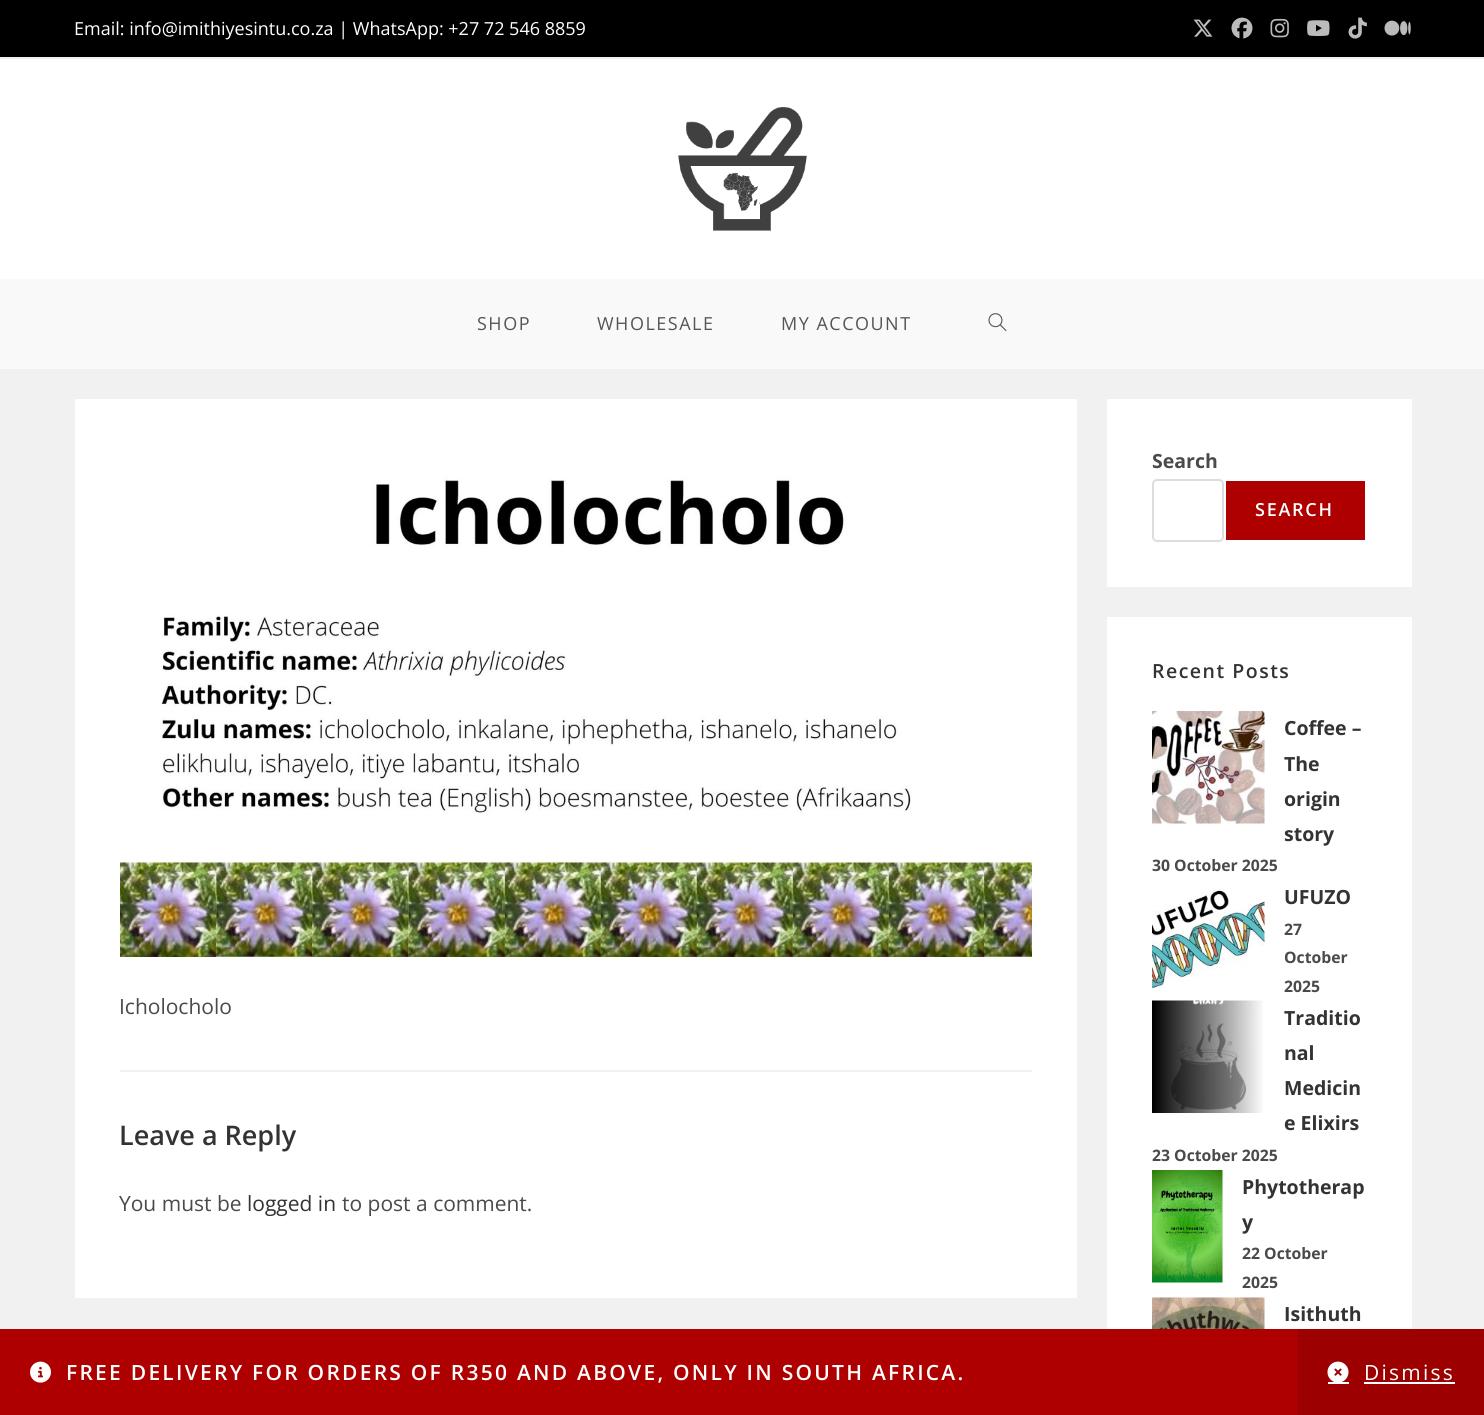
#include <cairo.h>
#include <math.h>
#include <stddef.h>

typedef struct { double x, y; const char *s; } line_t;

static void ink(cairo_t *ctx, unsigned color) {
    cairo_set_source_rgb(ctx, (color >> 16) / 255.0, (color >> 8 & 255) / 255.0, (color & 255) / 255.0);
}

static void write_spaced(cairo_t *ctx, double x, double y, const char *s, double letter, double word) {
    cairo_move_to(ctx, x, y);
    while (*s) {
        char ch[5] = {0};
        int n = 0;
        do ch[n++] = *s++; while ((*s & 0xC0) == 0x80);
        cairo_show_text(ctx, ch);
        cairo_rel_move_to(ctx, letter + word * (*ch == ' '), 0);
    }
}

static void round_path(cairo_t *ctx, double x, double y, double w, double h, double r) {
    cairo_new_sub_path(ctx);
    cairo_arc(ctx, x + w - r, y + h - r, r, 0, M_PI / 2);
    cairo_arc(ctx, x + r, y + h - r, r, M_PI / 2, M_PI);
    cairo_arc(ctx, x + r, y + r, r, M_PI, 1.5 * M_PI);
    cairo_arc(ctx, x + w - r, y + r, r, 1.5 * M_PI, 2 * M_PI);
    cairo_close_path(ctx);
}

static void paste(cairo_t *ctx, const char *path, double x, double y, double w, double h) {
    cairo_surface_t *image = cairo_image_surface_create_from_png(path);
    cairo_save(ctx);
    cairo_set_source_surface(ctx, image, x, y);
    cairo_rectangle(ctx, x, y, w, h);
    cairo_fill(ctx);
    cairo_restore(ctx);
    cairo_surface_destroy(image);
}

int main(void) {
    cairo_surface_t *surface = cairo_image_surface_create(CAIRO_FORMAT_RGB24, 1484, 1415);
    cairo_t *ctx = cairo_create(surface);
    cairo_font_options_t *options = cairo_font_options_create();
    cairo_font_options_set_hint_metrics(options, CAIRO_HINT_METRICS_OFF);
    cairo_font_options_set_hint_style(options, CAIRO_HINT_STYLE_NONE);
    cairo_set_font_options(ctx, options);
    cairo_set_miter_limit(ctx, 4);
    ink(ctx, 0xF1F1F1);
    cairo_paint(ctx);
    ink(ctx, 0x000000);
    cairo_rectangle(ctx, 0, 0, 1484, 57);
    cairo_fill(ctx);
    cairo_select_font_face(ctx, "Open Sans", CAIRO_FONT_SLANT_NORMAL, CAIRO_FONT_WEIGHT_NORMAL);
    cairo_set_font_size(ctx, 18);
    ink(ctx, 0xFFFFFF);
    cairo_move_to(ctx, 74, 35);
    cairo_show_text(ctx, "Email: info@imithiyesintu.co.za | WhatsApp: +27 72 546 8859");
    paste(ctx, "media/1.png", 1193, 19, 20, 18);
    paste(ctx, "media/2.png", 1231, 17, 22, 22);
    paste(ctx, "media/3.png", 1270, 18, 19, 20);
    paste(ctx, "media/4.png", 1307, 20, 23, 16);
    paste(ctx, "media/5.png", 1348, 17, 19, 22);
    paste(ctx, "media/6.png", 1384, 20, 27, 16);
    cairo_rectangle(ctx, 0, 59, 1484, 220);
    cairo_fill(ctx);
    paste(ctx, "media/7.png", 678, 107, 129, 124);
    ink(ctx, 0xF9F9F9);
    cairo_rectangle(ctx, 0, 279, 1484, 90);
    cairo_fill(ctx);
    ink(ctx, 0x555555);
    {
        static const line_t items[] = {
            {477, 330, "SHOP"},
            {597, 330, "WHOLESALE"},
            {781, 330, "MY ACCOUNT"},
        };
        for (size_t i = 0; i < sizeof items / sizeof *items; i++) {
            write_spaced(ctx, items[i].x, items[i].y, items[i].s, 1.5, 0);
        }
    }
    paste(ctx, "media/8.png", 988, 313, 19, 19);
    ink(ctx, 0xFFFFFF);
    cairo_rectangle(ctx, 75, 399, 1002, 899);
    cairo_fill(ctx);
    paste(ctx, "media/9.png", 120, 477, 912, 480);
    cairo_set_font_size(ctx, 21);
    ink(ctx, 0x4A4A4A);
    cairo_move_to(ctx, 119, 1014);
    cairo_show_text(ctx, "Icholocholo");
    ink(ctx, 0xF1F1F1);
    cairo_rectangle(ctx, 120, 1070, 912, 2);
    cairo_fill(ctx);
    cairo_select_font_face(ctx, "Open Sans SemiBold", CAIRO_FONT_SLANT_NORMAL, CAIRO_FONT_WEIGHT_NORMAL);
    cairo_set_font_size(ctx, 27);
    ink(ctx, 0x333333);
    cairo_move_to(ctx, 119, 1145);
    cairo_show_text(ctx, "Leave a Reply");
    cairo_select_font_face(ctx, "Open Sans", CAIRO_FONT_SLANT_NORMAL, CAIRO_FONT_WEIGHT_NORMAL);
    cairo_set_font_size(ctx, 21);
    ink(ctx, 0x4A4A4A);
    cairo_move_to(ctx, 119, 1211);
    cairo_show_text(ctx, "You must be");
    ink(ctx, 0x333333);
    cairo_move_to(ctx, 247, 1211);
    cairo_show_text(ctx, "logged in");
    ink(ctx, 0x4A4A4A);
    cairo_move_to(ctx, 342, 1211);
    cairo_show_text(ctx, "to post a comment.");
    ink(ctx, 0xFFFFFF);
    cairo_rectangle(ctx, 1107, 399, 305, 188);
    cairo_fill(ctx);
    cairo_select_font_face(ctx, "Open Sans", CAIRO_FONT_SLANT_NORMAL, CAIRO_FONT_WEIGHT_BOLD);
    cairo_set_font_size(ctx, 19.5);
    ink(ctx, 0x4A4A4A);
    cairo_move_to(ctx, 1152, 468);
    cairo_show_text(ctx, "Search");
    round_path(ctx, 1153, 480, 70, 61, 4);
    ink(ctx, 0xDDDDDD);
    cairo_stroke(ctx);
    ink(ctx, 0xAE0000);
    cairo_rectangle(ctx, 1226, 481, 139, 59);
    cairo_fill(ctx);
    cairo_select_font_face(ctx, "Open Sans SemiBold", CAIRO_FONT_SLANT_NORMAL, CAIRO_FONT_WEIGHT_NORMAL);
    cairo_set_font_size(ctx, 18);
    ink(ctx, 0xFFFFFF);
    write_spaced(ctx, 1255, 516, "SEARCH", 1.75, 0);
    cairo_rectangle(ctx, 1107, 617, 305, 712);
    cairo_fill(ctx);
    cairo_set_font_size(ctx, 19.5);
    ink(ctx, 0x333333);
    write_spaced(ctx, 1152, 678, "Recent Posts", 1.5, 0);
    paste(ctx, "media/10.png", 1152, 711, 113, 113);
    cairo_select_font_face(ctx, "Open Sans", CAIRO_FONT_SLANT_NORMAL, CAIRO_FONT_WEIGHT_BOLD);
    {
        static const line_t items[] = {
            {1284, 735, "Coffee –"},
            {1284, 771, "The"},
            {1284, 806, "origin"},
            {1284, 841, "story"},
        };
        for (size_t i = 0; i < sizeof items / sizeof *items; i++) {
            cairo_move_to(ctx, items[i].x, items[i].y);
            cairo_show_text(ctx, items[i].s);
        }
    }
    cairo_set_font_size(ctx, 15.75);
    ink(ctx, 0x4A4A4A);
    cairo_move_to(ctx, 1152, 871);
    cairo_show_text(ctx, "30 October 2025");
    paste(ctx, "media/11.png", 1152, 887, 113, 102);
    cairo_set_font_size(ctx, 19.5);
    ink(ctx, 0x333333);
    cairo_move_to(ctx, 1284, 904);
    cairo_show_text(ctx, "UFUZO");
    cairo_set_font_size(ctx, 15.75);
    ink(ctx, 0x4A4A4A);
    {
        static const line_t items[] = {
            {1284, 935, "27"},
            {1284, 963, "October"},
            {1284, 992, "2025"},
        };
        for (size_t i = 0; i < sizeof items / sizeof *items; i++) {
            cairo_move_to(ctx, items[i].x, items[i].y);
            cairo_show_text(ctx, items[i].s);
        }
    }
    paste(ctx, "media/12.png", 1152, 1000, 111, 113);
    cairo_set_font_size(ctx, 19.5);
    ink(ctx, 0x333333);
    {
        static const line_t items[] = {
            {1284, 1025, "Traditio"},
            {1284, 1060, "nal"},
            {1284, 1095, "Medicin"},
            {1284, 1130, "e Elixirs"},
        };
        for (size_t i = 0; i < sizeof items / sizeof *items; i++) {
            cairo_move_to(ctx, items[i].x, items[i].y);
            cairo_show_text(ctx, items[i].s);
        }
    }
    cairo_set_font_size(ctx, 15.75);
    ink(ctx, 0x4A4A4A);
    cairo_move_to(ctx, 1152, 1161);
    cairo_show_text(ctx, "23 October 2025");
    paste(ctx, "media/13.png", 1152, 1170, 71, 113);
    cairo_set_font_size(ctx, 19.5);
    ink(ctx, 0x333333);
    cairo_move_to(ctx, 1242, 1194);
    cairo_show_text(ctx, "Phytotherap");
    cairo_move_to(ctx, 1242, 1229);
    cairo_show_text(ctx, "y");
    cairo_set_font_size(ctx, 15.75);
    ink(ctx, 0x4A4A4A);
    cairo_move_to(ctx, 1242, 1259);
    cairo_show_text(ctx, "22 October");
    cairo_move_to(ctx, 1242, 1288);
    cairo_show_text(ctx, "2025");
    paste(ctx, "media/14.png", 1152, 1297, 113, 32);
    cairo_set_font_size(ctx, 19.5);
    ink(ctx, 0x333333);
    cairo_move_to(ctx, 1284, 1321);
    cairo_show_text(ctx, "Isithuth");
    ink(ctx, 0xAE0000);
    cairo_rectangle(ctx, 0, 1329, 1298, 86);
    cairo_fill(ctx);
    paste(ctx, "media/15.png", 30, 1361, 21, 22);
    cairo_select_font_face(ctx, "Open Sans SemiBold", CAIRO_FONT_SLANT_NORMAL, CAIRO_FONT_WEIGHT_NORMAL);
    cairo_set_font_size(ctx, 21);
    ink(ctx, 0xFFFFFF);
    write_spaced(ctx, 66, 1380, "FREE DELIVERY FOR ORDERS OF R350 AND ABOVE, ONLY IN SOUTH AFRICA.", 2.25, 0);
    ink(ctx, 0x9D0000);
    cairo_rectangle(ctx, 1298, 1329, 186, 86);
    cairo_fill(ctx);
    paste(ctx, "media/16.png", 1327, 1361, 22, 21);
    cairo_select_font_face(ctx, "Open Sans", CAIRO_FONT_SLANT_NORMAL, CAIRO_FONT_WEIGHT_NORMAL);
    ink(ctx, 0xFFFFFF);
    write_spaced(ctx, 1364, 1380, "Dismiss", 2.25, 0);
    cairo_rectangle(ctx, 1364, 1382, 91, 2);
    cairo_fill(ctx);
    cairo_rectangle(ctx, 1328, 1382, 21, 2);
    cairo_fill(ctx);
    cairo_surface_write_to_png(surface, "image.png");
    cairo_font_options_destroy(options);
    cairo_destroy(ctx);
    cairo_surface_destroy(surface);
    return 0;
}
